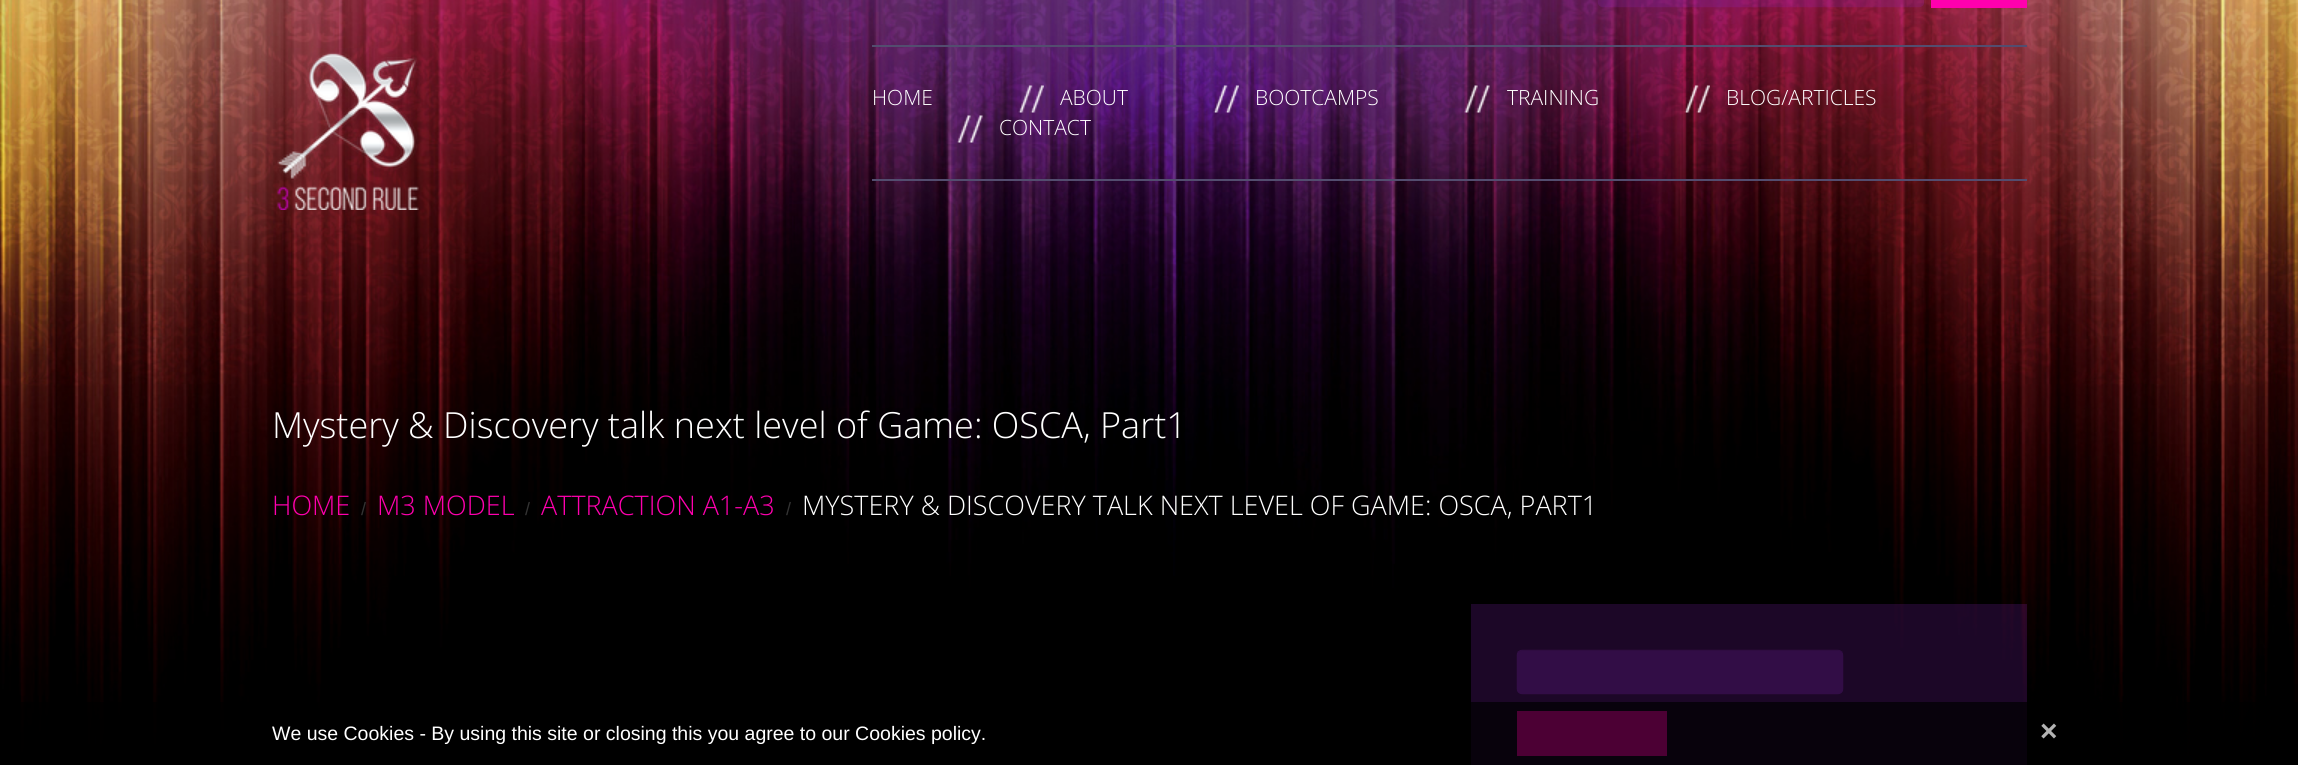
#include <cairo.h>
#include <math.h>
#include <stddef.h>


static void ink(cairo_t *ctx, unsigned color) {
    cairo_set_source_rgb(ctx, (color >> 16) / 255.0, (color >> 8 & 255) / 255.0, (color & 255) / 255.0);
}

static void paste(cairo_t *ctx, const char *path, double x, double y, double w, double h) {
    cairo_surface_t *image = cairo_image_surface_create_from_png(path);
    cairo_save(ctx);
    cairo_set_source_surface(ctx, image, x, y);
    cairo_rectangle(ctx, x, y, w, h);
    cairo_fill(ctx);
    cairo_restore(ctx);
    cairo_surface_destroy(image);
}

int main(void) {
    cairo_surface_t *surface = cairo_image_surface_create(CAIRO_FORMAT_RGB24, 2298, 765);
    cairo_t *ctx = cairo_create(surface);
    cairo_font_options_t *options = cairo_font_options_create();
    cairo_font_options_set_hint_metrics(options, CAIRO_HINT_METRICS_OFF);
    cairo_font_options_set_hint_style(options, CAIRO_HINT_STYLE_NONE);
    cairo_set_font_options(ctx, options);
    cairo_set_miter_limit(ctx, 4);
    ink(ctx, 0xFFFFFF);
    cairo_paint(ctx);
    paste(ctx, "media/1.png", 0, 0, 2298, 765);
    paste(ctx, "media/2.png", 1597, 0, 328, 8);
    cairo_set_source_rgba(ctx, 0, 0, 0, 0.07);
    cairo_new_path(ctx);
    cairo_move_to(ctx, 1604, -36);
    cairo_line_to(ctx, 1918, -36);
    cairo_curve_to(ctx, 1922, -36, 1924, -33, 1924, -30);
    cairo_line_to(ctx, 1924, 3);
    cairo_curve_to(ctx, 1924, 4, 1924, 5, 1923, 6);
    cairo_curve_to(ctx, 1924, 5, 1925, 4, 1925, 2);
    cairo_line_to(ctx, 1925, -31);
    cairo_curve_to(ctx, 1925, -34, 1922, -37, 1919, -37);
    cairo_line_to(ctx, 1604, -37);
    cairo_curve_to(ctx, 1601, -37, 1598, -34, 1598, -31);
    cairo_line_to(ctx, 1598, -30);
    cairo_curve_to(ctx, 1598, -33, 1600, -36, 1604, -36);
    cairo_close_path(ctx);
    cairo_fill(ctx);
    ink(ctx, 0xFF00AE);
    cairo_rectangle(ctx, 1931, 0, 96, 8);
    cairo_fill(ctx);
    paste(ctx, "media/3.png", 277, 52, 142, 158);
    ink(ctx, 0x534D6F);
    cairo_rectangle(ctx, 872, 45, 1155, 2);
    cairo_fill(ctx);
    cairo_rectangle(ctx, 872, 179, 1155, 2);
    cairo_fill(ctx);
    cairo_select_font_face(ctx, "Open Sans Light", CAIRO_FONT_SLANT_NORMAL, CAIRO_FONT_WEIGHT_NORMAL);
    cairo_set_font_size(ctx, 21);
    ink(ctx, 0xFFFFFF);
    cairo_move_to(ctx, 872, 105);
    cairo_show_text(ctx, "HOME");
    paste(ctx, "media/4.png", 1018, 85, 26, 28);
    cairo_move_to(ctx, 1060, 105);
    cairo_show_text(ctx, "ABOUT");
    paste(ctx, "media/5.png", 1213, 85, 26, 28);
    cairo_move_to(ctx, 1255, 105);
    cairo_show_text(ctx, "BOOTCAMPS");
    paste(ctx, "media/6.png", 1464, 85, 26, 28);
    cairo_move_to(ctx, 1507, 105);
    cairo_show_text(ctx, "TRAINING");
    paste(ctx, "media/7.png", 1684, 85, 26, 28);
    cairo_move_to(ctx, 1726, 105);
    cairo_show_text(ctx, "BLOG/ARTICLES");
    paste(ctx, "media/8.png", 957, 115, 26, 28);
    cairo_move_to(ctx, 999, 135);
    cairo_show_text(ctx, "CONTACT");
    cairo_set_font_size(ctx, 36);
    cairo_move_to(ctx, 272, 438);
    cairo_show_text(ctx, "Mystery & Discovery talk next level of Game: OSCA, Part1");
    cairo_set_font_size(ctx, 27);
    ink(ctx, 0xFF00AE);
    cairo_move_to(ctx, 272, 515);
    cairo_show_text(ctx, "HOME");
    cairo_select_font_face(ctx, "Liberation Sans", CAIRO_FONT_SLANT_NORMAL, CAIRO_FONT_WEIGHT_NORMAL);
    cairo_set_font_size(ctx, 18);
    ink(ctx, 0x333333);
    cairo_move_to(ctx, 361, 515);
    cairo_show_text(ctx, "/");
    cairo_select_font_face(ctx, "Open Sans Light", CAIRO_FONT_SLANT_NORMAL, CAIRO_FONT_WEIGHT_NORMAL);
    cairo_set_font_size(ctx, 27);
    ink(ctx, 0xFF00AE);
    cairo_move_to(ctx, 377, 515);
    cairo_show_text(ctx, "M3 MODEL");
    cairo_select_font_face(ctx, "Liberation Sans", CAIRO_FONT_SLANT_NORMAL, CAIRO_FONT_WEIGHT_NORMAL);
    cairo_set_font_size(ctx, 18);
    ink(ctx, 0x333333);
    cairo_move_to(ctx, 525, 515);
    cairo_show_text(ctx, "/");
    cairo_select_font_face(ctx, "Open Sans Light", CAIRO_FONT_SLANT_NORMAL, CAIRO_FONT_WEIGHT_NORMAL);
    cairo_set_font_size(ctx, 27);
    ink(ctx, 0xFF00AE);
    cairo_move_to(ctx, 541, 515);
    cairo_show_text(ctx, "ATTRACTION A1-A3");
    cairo_select_font_face(ctx, "Liberation Sans", CAIRO_FONT_SLANT_NORMAL, CAIRO_FONT_WEIGHT_NORMAL);
    cairo_set_font_size(ctx, 18);
    ink(ctx, 0x333333);
    cairo_move_to(ctx, 786, 515);
    cairo_show_text(ctx, "/");
    cairo_select_font_face(ctx, "Open Sans Light", CAIRO_FONT_SLANT_NORMAL, CAIRO_FONT_WEIGHT_NORMAL);
    cairo_set_font_size(ctx, 27);
    ink(ctx, 0xFFFFFF);
    cairo_move_to(ctx, 802, 515);
    cairo_show_text(ctx, "MYSTERY & DISCOVERY TALK NEXT LEVEL OF GAME: OSCA, PART1");
    cairo_set_source_rgba(ctx, 0.549, 0.137, 0.765, 0.2);
    cairo_rectangle(ctx, 1471, 604, 556, 161);
    cairo_fill(ctx);
    paste(ctx, "media/9.png", 1516, 649, 328, 46);
    cairo_set_source_rgba(ctx, 0, 0, 0, 0.07);
    cairo_new_path(ctx);
    cairo_move_to(ctx, 1522, 651);
    cairo_line_to(ctx, 1838, 651);
    cairo_curve_to(ctx, 1841, 651, 1844, 654, 1844, 657);
    cairo_line_to(ctx, 1844, 656);
    cairo_curve_to(ctx, 1844, 653, 1841, 650, 1838, 650);
    cairo_line_to(ctx, 1523, 650);
    cairo_curve_to(ctx, 1521, 650, 1519, 651, 1518, 653);
    cairo_curve_to(ctx, 1519, 652, 1521, 651, 1522, 651);
    cairo_close_path(ctx);
    cairo_fill(ctx);
    ink(ctx, 0xFF00AE);
    cairo_rectangle(ctx, 1517, 711, 150, 45);
    cairo_fill(ctx);
    cairo_set_source_rgba(ctx, 0, 0, 0, 0.7);
    cairo_rectangle(ctx, 21, 702, 2277, 63);
    cairo_fill(ctx);
    cairo_select_font_face(ctx, "Liberation Sans", CAIRO_FONT_SLANT_NORMAL, CAIRO_FONT_WEIGHT_NORMAL);
    cairo_set_font_size(ctx, 19.5);
    ink(ctx, 0xFFFFFF);
    cairo_move_to(ctx, 272, 740);
    cairo_show_text(ctx, "We use Cookies - By using this site or closing this you agree to our Cookies policy.");
    cairo_select_font_face(ctx, "Liberation Sans", CAIRO_FONT_SLANT_NORMAL, CAIRO_FONT_WEIGHT_BOLD);
    cairo_set_font_size(ctx, 30);
    ink(ctx, 0xB3B3B3);
    cairo_move_to(ctx, 2040, 741);
    cairo_show_text(ctx, "×");
    cairo_surface_write_to_png(surface, "image.png");
    cairo_font_options_destroy(options);
    cairo_destroy(ctx);
    cairo_surface_destroy(surface);
    return 0;
}
